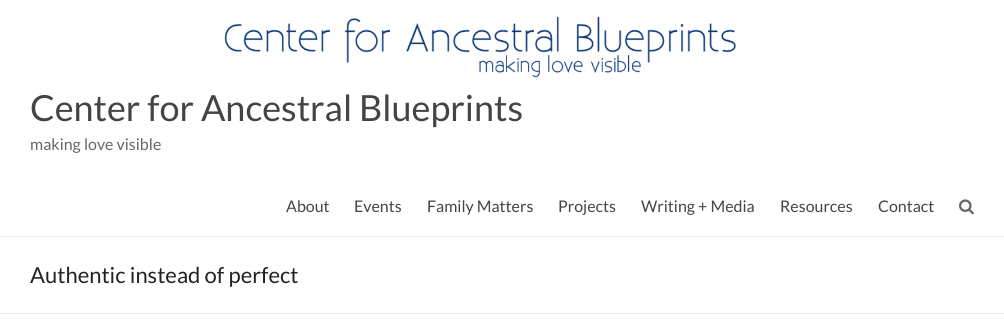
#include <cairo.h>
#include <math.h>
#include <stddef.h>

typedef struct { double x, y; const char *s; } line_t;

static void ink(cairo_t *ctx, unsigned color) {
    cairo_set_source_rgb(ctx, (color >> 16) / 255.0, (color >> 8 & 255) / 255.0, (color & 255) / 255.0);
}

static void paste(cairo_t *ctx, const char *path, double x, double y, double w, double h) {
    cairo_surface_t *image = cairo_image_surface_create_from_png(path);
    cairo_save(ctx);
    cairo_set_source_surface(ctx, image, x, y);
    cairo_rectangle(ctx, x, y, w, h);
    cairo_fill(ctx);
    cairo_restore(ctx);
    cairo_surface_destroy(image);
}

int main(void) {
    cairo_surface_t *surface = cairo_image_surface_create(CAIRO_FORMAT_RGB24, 1004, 325);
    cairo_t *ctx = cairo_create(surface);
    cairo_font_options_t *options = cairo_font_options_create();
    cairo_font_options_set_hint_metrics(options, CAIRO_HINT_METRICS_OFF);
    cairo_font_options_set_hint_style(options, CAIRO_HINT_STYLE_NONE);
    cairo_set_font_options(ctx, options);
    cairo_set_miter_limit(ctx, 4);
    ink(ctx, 0xFFFFFF);
    cairo_paint(ctx);
    ink(ctx, 0xEAEAEA);
    cairo_rectangle(ctx, 0, 236, 1004, 1);
    cairo_fill(ctx);
    paste(ctx, "media/1.png", 224, 16, 512, 62);
    cairo_select_font_face(ctx, "Lato", CAIRO_FONT_SLANT_NORMAL, CAIRO_FONT_WEIGHT_NORMAL);
    cairo_set_font_size(ctx, 36);
    ink(ctx, 0x444444);
    cairo_move_to(ctx, 30, 121);
    cairo_show_text(ctx, "Center for Ancestral Blueprints");
    cairo_set_font_size(ctx, 16);
    ink(ctx, 0x666666);
    cairo_move_to(ctx, 30, 150);
    cairo_show_text(ctx, "making love visible");
    ink(ctx, 0x444444);
    {
        static const line_t items[] = {
            {286, 212, "About"},
            {354, 212, "Events"},
            {427, 212, "Family Matters"},
            {558, 212, "Projects"},
            {641, 212, "Writing + Media"},
            {780, 212, "Resources"},
            {878, 212, "Contact"},
        };
        for (size_t i = 0; i < sizeof items / sizeof *items; i++) {
            cairo_move_to(ctx, items[i].x, items[i].y);
            cairo_show_text(ctx, items[i].s);
        }
    }
    paste(ctx, "media/2.png", 959, 199, 15, 16);
    ink(ctx, 0xEAEAEA);
    cairo_rectangle(ctx, 0, 313, 1004, 1);
    cairo_fill(ctx);
    cairo_set_font_size(ctx, 22);
    ink(ctx, 0x222222);
    cairo_move_to(ctx, 30, 283);
    cairo_show_text(ctx, "Authentic instead of perfect");
    cairo_surface_write_to_png(surface, "image.png");
    cairo_font_options_destroy(options);
    cairo_destroy(ctx);
    cairo_surface_destroy(surface);
    return 0;
}
